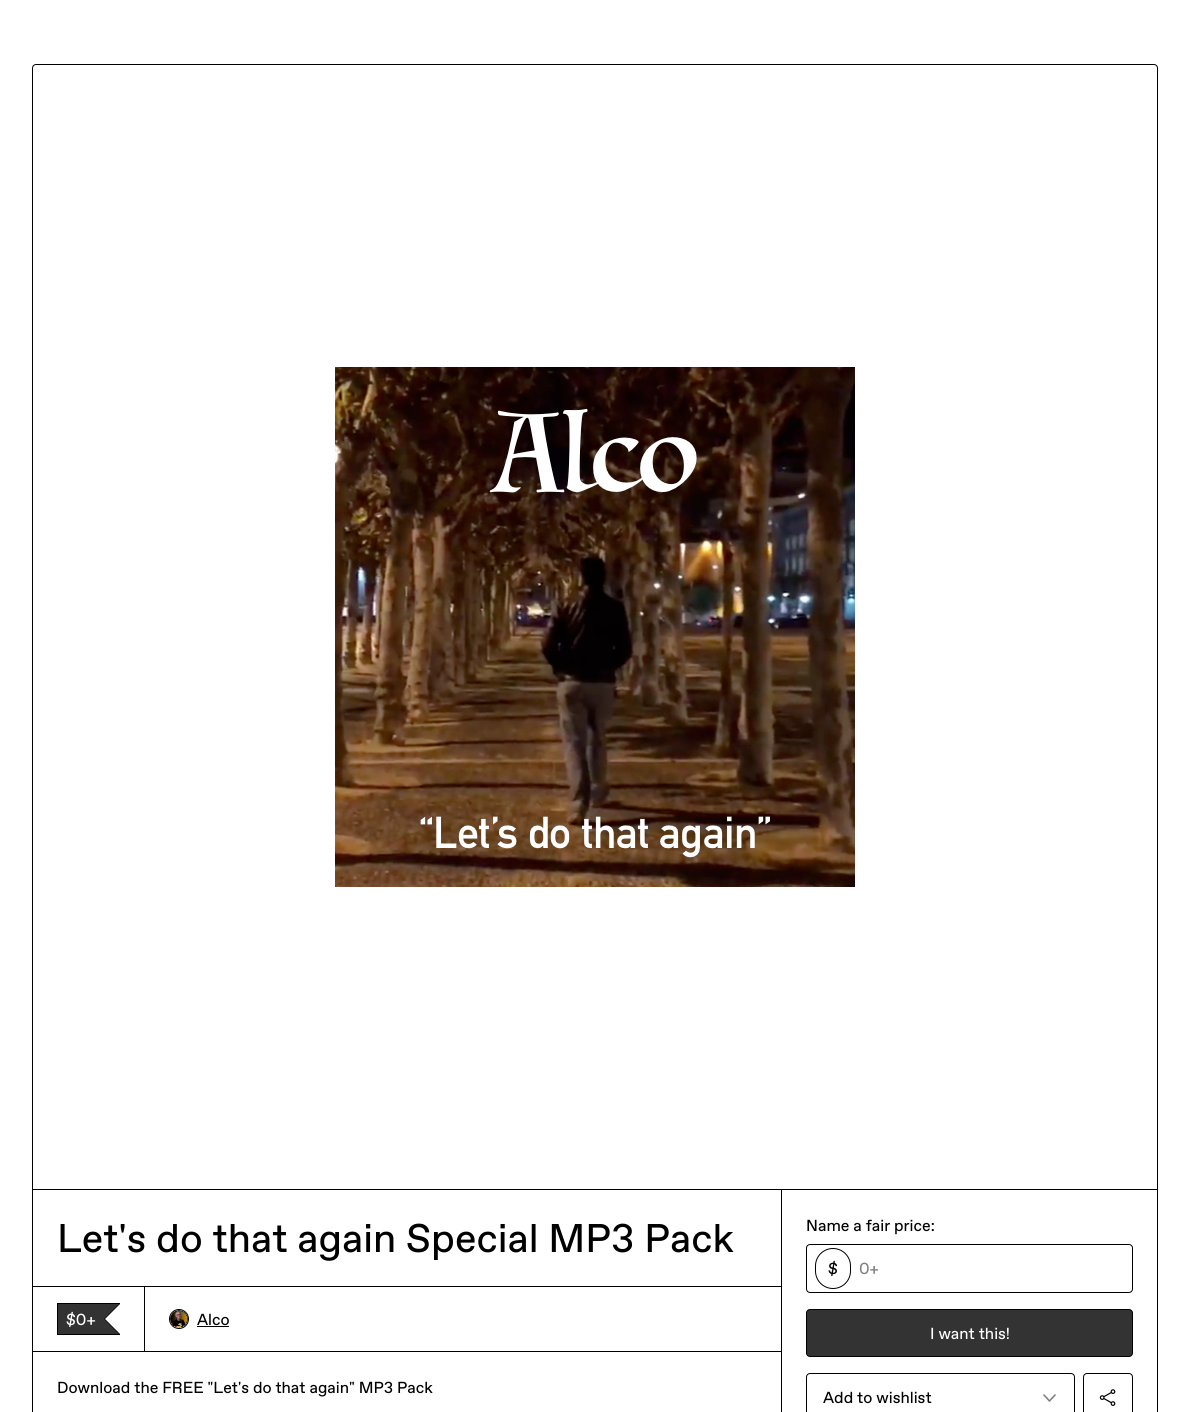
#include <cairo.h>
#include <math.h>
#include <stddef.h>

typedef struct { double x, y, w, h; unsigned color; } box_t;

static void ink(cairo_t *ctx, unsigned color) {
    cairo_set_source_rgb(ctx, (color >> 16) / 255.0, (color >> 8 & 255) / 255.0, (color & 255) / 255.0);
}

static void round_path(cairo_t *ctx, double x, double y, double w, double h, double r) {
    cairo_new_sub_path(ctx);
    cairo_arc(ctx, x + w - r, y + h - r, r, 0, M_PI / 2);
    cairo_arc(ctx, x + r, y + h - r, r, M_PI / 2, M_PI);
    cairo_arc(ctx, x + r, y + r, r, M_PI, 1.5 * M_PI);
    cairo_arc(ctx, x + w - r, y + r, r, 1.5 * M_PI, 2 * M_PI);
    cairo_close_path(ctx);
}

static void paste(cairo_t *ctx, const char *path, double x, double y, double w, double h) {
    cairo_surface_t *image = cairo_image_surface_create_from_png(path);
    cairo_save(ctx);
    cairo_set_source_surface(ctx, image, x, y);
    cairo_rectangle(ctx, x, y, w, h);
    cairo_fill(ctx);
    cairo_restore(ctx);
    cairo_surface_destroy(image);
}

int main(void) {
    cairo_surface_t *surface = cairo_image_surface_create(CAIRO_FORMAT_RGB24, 1190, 1412);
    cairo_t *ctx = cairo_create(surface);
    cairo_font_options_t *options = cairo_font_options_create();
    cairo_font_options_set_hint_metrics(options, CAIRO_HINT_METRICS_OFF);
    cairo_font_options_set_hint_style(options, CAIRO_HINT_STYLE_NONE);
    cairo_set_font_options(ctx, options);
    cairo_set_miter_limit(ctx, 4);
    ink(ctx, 0xFFFFFF);
    cairo_paint(ctx);
    round_path(ctx, 32.5, 64.5, 1125, 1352, 3.5);
    ink(ctx, 0x000000);
    cairo_set_line_width(ctx, 1);
    cairo_stroke(ctx);
    cairo_rectangle(ctx, 33, 1189, 1124, 1);
    cairo_fill(ctx);
    paste(ctx, "media/1.png", 335, 367, 520, 520);
    cairo_rectangle(ctx, 781, 1190, 1, 222);
    cairo_fill(ctx);
    cairo_select_font_face(ctx, "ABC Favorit", CAIRO_FONT_SLANT_NORMAL, CAIRO_FONT_WEIGHT_NORMAL);
    cairo_set_font_size(ctx, 40);
    cairo_move_to(ctx, 57, 1252);
    cairo_show_text(ctx, "Let's do that again Special MP3 Pack");
    cairo_rectangle(ctx, 145, 1286, 636, 1);
    cairo_fill(ctx);
    cairo_rectangle(ctx, 32.5, 1286.5, 112, 65);
    cairo_stroke(ctx);
    {
        static const box_t items[] = {
            {57, 1303, 63, 1, 0x000000},
            {57, 1334, 63, 1, 0x000000},
            {57, 1303, 1, 32, 0x000000},
            {58, 1304, 46, 30, 0x333333},
        };
        for (size_t i = 0; i < sizeof items / sizeof *items; i++) {
            ink(ctx, items[i].color);
            cairo_rectangle(ctx, items[i].x, items[i].y, items[i].w, items[i].h);
            cairo_fill(ctx);
        }
    }
    ink(ctx, 0x000000);
    cairo_new_path(ctx);
    cairo_move_to(ctx, 104, 1304);
    cairo_line_to(ctx, 120, 1304);
    cairo_line_to(ctx, 105, 1319);
    cairo_close_path(ctx);
    cairo_move_to(ctx, 120, 1334);
    cairo_line_to(ctx, 104, 1334);
    cairo_line_to(ctx, 105, 1319);
    cairo_close_path(ctx);
    cairo_fill(ctx);
    cairo_rectangle(ctx, 104, 1318, 1, 2);
    cairo_fill(ctx);
    ink(ctx, 0x333333);
    cairo_new_path(ctx);
    cairo_move_to(ctx, 103, 1304);
    cairo_line_to(ctx, 119, 1304);
    cairo_line_to(ctx, 104, 1319);
    cairo_close_path(ctx);
    cairo_move_to(ctx, 119, 1334);
    cairo_line_to(ctx, 103, 1334);
    cairo_line_to(ctx, 104, 1319);
    cairo_close_path(ctx);
    cairo_fill(ctx);
    cairo_set_font_size(ctx, 16);
    ink(ctx, 0xFFFFFF);
    cairo_move_to(ctx, 66, 1325);
    cairo_show_text(ctx, "$0+");
    cairo_new_path(ctx);
    cairo_arc(ctx, 179, 1319, 9.5, 0, 2 * M_PI);
    ink(ctx, 0x000000);
    cairo_stroke(ctx);
    paste(ctx, "media/2.png", 170, 1310, 18, 18);
    cairo_move_to(ctx, 197, 1325);
    cairo_show_text(ctx, "Alco");
    cairo_rectangle(ctx, 197, 1326, 32, 1);
    cairo_fill(ctx);
    cairo_rectangle(ctx, 145, 1351, 636, 1);
    cairo_fill(ctx);
    cairo_move_to(ctx, 57, 1393);
    cairo_show_text(ctx, "Download the FREE \"Let's do that again\" MP3 Pack");
    cairo_move_to(ctx, 806, 1231);
    cairo_show_text(ctx, "Name a fair price:");
    round_path(ctx, 806.5, 1244.5, 326, 48, 3.5);
    cairo_stroke(ctx);
    round_path(ctx, 815.5, 1248.5, 35, 40, 17.5);
    cairo_stroke(ctx);
    cairo_move_to(ctx, 828, 1274);
    cairo_show_text(ctx, "$");
    ink(ctx, 0x808080);
    cairo_move_to(ctx, 859, 1274);
    cairo_show_text(ctx, "0+");
    ink(ctx, 0x333333);
    round_path(ctx, 806.5, 1309.5, 326, 47, 3.5);
    cairo_fill_preserve(ctx);
    ink(ctx, 0x000000);
    cairo_stroke(ctx);
    ink(ctx, 0xFFFFFF);
    cairo_move_to(ctx, 930, 1339);
    cairo_show_text(ctx, "I want this!");
    round_path(ctx, 806.5, 1373.5, 268, 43, 3.5);
    ink(ctx, 0x000000);
    cairo_stroke(ctx);
    cairo_move_to(ctx, 823, 1403);
    cairo_show_text(ctx, "Add to wishlist");
    cairo_new_path(ctx);
    cairo_move_to(ctx, 1055, 1395);
    cairo_line_to(ctx, 1049.5, 1401);
    cairo_line_to(ctx, 1044, 1395);
    ink(ctx, 0x808080);
    cairo_set_line_width(ctx, 1.6);
    cairo_set_line_cap(ctx, CAIRO_LINE_CAP_ROUND);
    cairo_set_line_join(ctx, CAIRO_LINE_JOIN_ROUND);
    cairo_stroke(ctx);
    round_path(ctx, 1083.5, 1373.5, 49, 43, 3.5);
    ink(ctx, 0x000000);
    cairo_set_line_width(ctx, 1);
    cairo_set_line_cap(ctx, CAIRO_LINE_CAP_BUTT);
    cairo_set_line_join(ctx, CAIRO_LINE_JOIN_MITER);
    cairo_stroke(ctx);
    paste(ctx, "media/3.png", 1099, 1389, 17, 17);
    cairo_surface_write_to_png(surface, "image.png");
    cairo_font_options_destroy(options);
    cairo_destroy(ctx);
    cairo_surface_destroy(surface);
    return 0;
}
